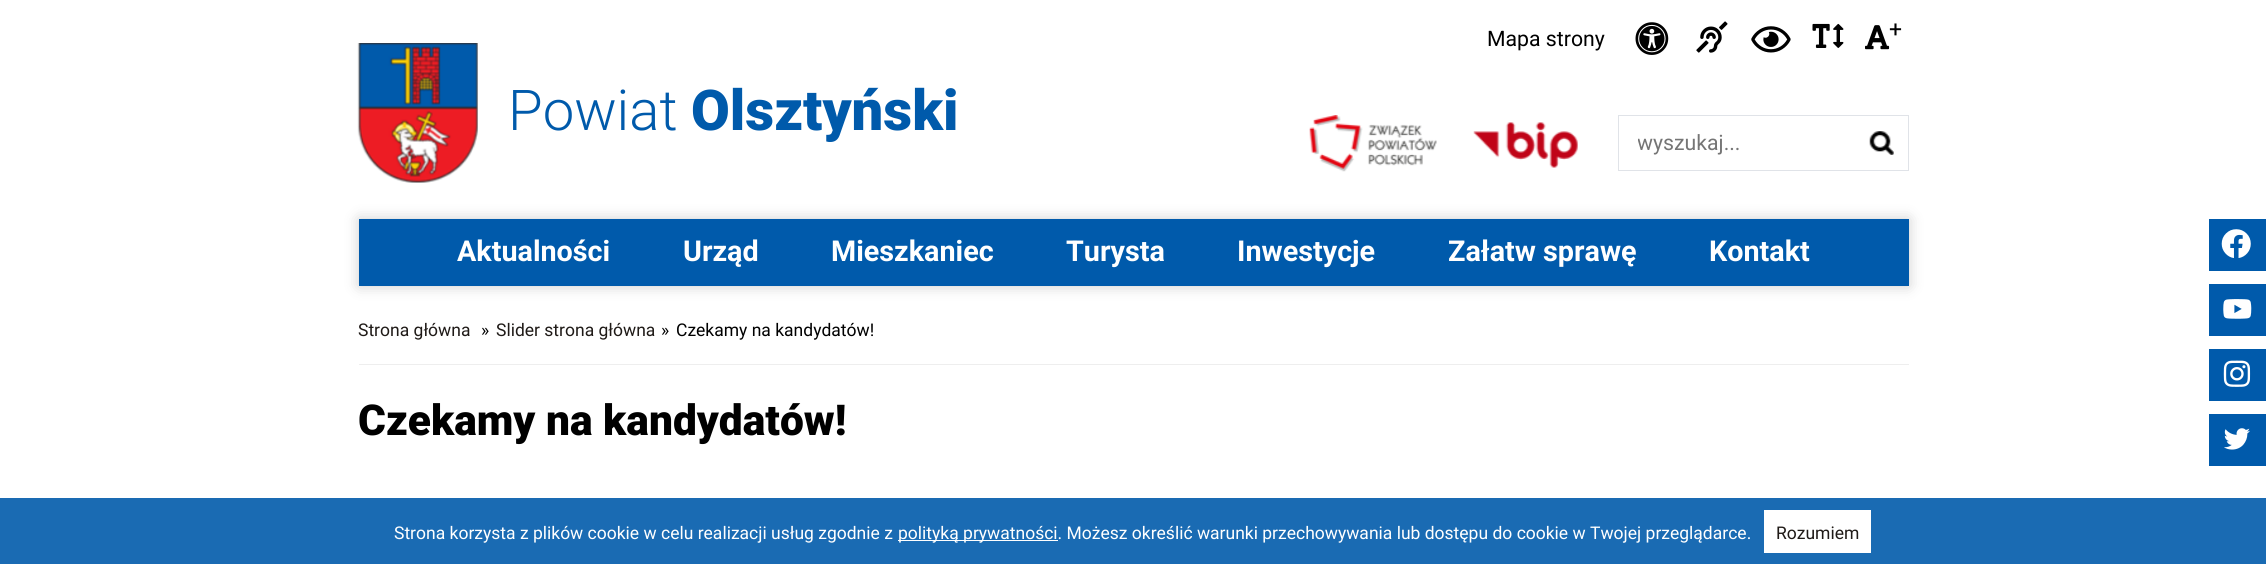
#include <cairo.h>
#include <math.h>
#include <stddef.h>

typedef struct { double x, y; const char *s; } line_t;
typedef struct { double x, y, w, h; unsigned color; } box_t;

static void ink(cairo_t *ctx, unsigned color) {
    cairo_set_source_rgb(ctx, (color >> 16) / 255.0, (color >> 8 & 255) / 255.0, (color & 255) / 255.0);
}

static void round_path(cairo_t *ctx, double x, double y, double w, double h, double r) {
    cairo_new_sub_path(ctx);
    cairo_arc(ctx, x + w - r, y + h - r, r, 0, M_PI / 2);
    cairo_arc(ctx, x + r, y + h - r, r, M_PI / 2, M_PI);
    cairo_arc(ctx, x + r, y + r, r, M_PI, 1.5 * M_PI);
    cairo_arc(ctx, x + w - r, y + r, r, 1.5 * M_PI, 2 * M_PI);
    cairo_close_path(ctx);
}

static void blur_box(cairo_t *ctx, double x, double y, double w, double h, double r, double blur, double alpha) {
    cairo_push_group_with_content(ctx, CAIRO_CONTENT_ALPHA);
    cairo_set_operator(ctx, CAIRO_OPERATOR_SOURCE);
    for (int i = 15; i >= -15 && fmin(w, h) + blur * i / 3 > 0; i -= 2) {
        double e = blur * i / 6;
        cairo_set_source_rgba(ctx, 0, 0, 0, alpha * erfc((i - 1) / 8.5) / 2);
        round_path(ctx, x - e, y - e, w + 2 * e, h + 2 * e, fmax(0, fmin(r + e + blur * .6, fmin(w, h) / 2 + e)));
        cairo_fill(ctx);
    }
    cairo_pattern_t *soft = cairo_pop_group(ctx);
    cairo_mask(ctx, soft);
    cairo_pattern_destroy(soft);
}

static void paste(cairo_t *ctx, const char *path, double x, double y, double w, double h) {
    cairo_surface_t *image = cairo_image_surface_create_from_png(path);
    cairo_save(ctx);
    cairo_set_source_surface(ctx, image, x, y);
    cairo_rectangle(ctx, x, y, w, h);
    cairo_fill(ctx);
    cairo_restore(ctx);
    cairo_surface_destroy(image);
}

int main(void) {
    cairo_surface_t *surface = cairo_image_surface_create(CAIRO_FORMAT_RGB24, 2266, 564);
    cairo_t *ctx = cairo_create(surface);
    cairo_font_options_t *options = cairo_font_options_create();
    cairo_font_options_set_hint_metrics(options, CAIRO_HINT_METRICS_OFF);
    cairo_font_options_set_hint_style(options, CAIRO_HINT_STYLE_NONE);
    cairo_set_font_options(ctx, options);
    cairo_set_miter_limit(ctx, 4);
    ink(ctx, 0xFFFFFF);
    cairo_paint(ctx);
    cairo_select_font_face(ctx, "Roboto", CAIRO_FONT_SLANT_NORMAL, CAIRO_FONT_WEIGHT_NORMAL);
    cairo_set_font_size(ctx, 21.25);
    ink(ctx, 0x000000);
    cairo_move_to(ctx, 1487, 46);
    cairo_show_text(ctx, "Mapa strony");
    paste(ctx, "media/1.png", 1635, 22, 34, 33);
    paste(ctx, "media/2.png", 1696, 21, 32, 32);
    paste(ctx, "media/3.png", 1751, 26, 40, 27);
    paste(ctx, "media/4.png", 1812, 23, 32, 25);
    paste(ctx, "media/5.png", 1865, 25, 25, 25);
    cairo_set_font_size(ctx, 23);
    cairo_move_to(ctx, 1889, 37);
    cairo_show_text(ctx, "+");
    paste(ctx, "media/6.png", 357, 43, 121, 140);
    cairo_select_font_face(ctx, "Roboto Light", CAIRO_FONT_SLANT_NORMAL, CAIRO_FONT_WEIGHT_NORMAL);
    cairo_set_font_size(ctx, 56.25);
    ink(ctx, 0x005AAB);
    cairo_move_to(ctx, 508, 130);
    cairo_show_text(ctx, "Powiat");
    cairo_select_font_face(ctx, "Roboto Black", CAIRO_FONT_SLANT_NORMAL, CAIRO_FONT_WEIGHT_NORMAL);
    cairo_move_to(ctx, 691, 130);
    cairo_show_text(ctx, "Olsztyński");
    paste(ctx, "media/7.png", 1309, 115, 128, 57);
    paste(ctx, "media/8.png", 1473, 122, 105, 46);
    {
        static const box_t items[] = {
            {1618, 115, 291, 1, 0xE0E3E8},
            {1618, 170, 238, 1, 0xE0E3E8},
            {1618, 115, 1, 56, 0xE0E3E8},
        };
        for (size_t i = 0; i < sizeof items / sizeof *items; i++) {
            ink(ctx, items[i].color);
            cairo_rectangle(ctx, items[i].x, items[i].y, items[i].w, items[i].h);
            cairo_fill(ctx);
        }
    }
    cairo_save(ctx);
    cairo_rectangle(ctx, 1638, 130, 218, 25);
    cairo_clip(ctx);
    cairo_select_font_face(ctx, "Roboto", CAIRO_FONT_SLANT_NORMAL, CAIRO_FONT_WEIGHT_NORMAL);
    cairo_set_font_size(ctx, 21.25);
    ink(ctx, 0x757575);
    cairo_move_to(ctx, 1637, 150);
    cairo_show_text(ctx, "wyszukaj...");
    cairo_restore(ctx);
    paste(ctx, "media/9.png", 1869, 131, 25, 24);
    cairo_rectangle(ctx, 1908, 115, 1, 56);
    cairo_fill(ctx);
    cairo_rectangle(ctx, 1856, 170, 53, 1);
    cairo_fill(ctx);
    ink(ctx, 0x000000);
    blur_box(ctx, 359, 219, 1550, 67, 0, 7, 0.2);
    ink(ctx, 0x005AAB);
    cairo_rectangle(ctx, 359, 219, 1550, 67);
    cairo_fill(ctx);
    cairo_select_font_face(ctx, "Roboto", CAIRO_FONT_SLANT_NORMAL, CAIRO_FONT_WEIGHT_BOLD);
    cairo_set_font_size(ctx, 28.75);
    ink(ctx, 0xFFFFFF);
    {
        static const line_t items[] = {
            {457, 261, "Aktualności"},
            {683, 261, "Urząd"},
            {831, 261, "Mieszkaniec"},
            {1066, 261, "Turysta"},
            {1237, 261, "Inwestycje"},
            {1448, 261, "Załatw sprawę"},
            {1709, 261, "Kontakt"},
        };
        for (size_t i = 0; i < sizeof items / sizeof *items; i++) {
            cairo_move_to(ctx, items[i].x, items[i].y);
            cairo_show_text(ctx, items[i].s);
        }
    }
    ink(ctx, 0x005AAB);
    cairo_rectangle(ctx, 2209, 219, 57, 52);
    cairo_fill(ctx);
    paste(ctx, "media/10.png", 2221, 229, 30, 29);
    cairo_rectangle(ctx, 2209, 284, 57, 52);
    cairo_fill(ctx);
    paste(ctx, "media/11.png", 2223, 299, 29, 20);
    cairo_rectangle(ctx, 2209, 349, 57, 52);
    cairo_fill(ctx);
    paste(ctx, "media/12.png", 2223, 360, 28, 27);
    cairo_rectangle(ctx, 2209, 414, 57, 52);
    cairo_fill(ctx);
    paste(ctx, "media/13.png", 2224, 428, 26, 22);
    ink(ctx, 0xEEEEEE);
    cairo_rectangle(ctx, 359, 364, 1550, 1);
    cairo_fill(ctx);
    cairo_select_font_face(ctx, "Roboto", CAIRO_FONT_SLANT_NORMAL, CAIRO_FONT_WEIGHT_NORMAL);
    cairo_set_font_size(ctx, 17.5);
    ink(ctx, 0x1F1A17);
    cairo_move_to(ctx, 358, 336);
    cairo_show_text(ctx, "Strona główna");
    ink(ctx, 0x000000);
    cairo_move_to(ctx, 481, 336);
    cairo_show_text(ctx, "»");
    ink(ctx, 0x1F1A17);
    cairo_move_to(ctx, 496, 336);
    cairo_show_text(ctx, "Slider strona główna");
    ink(ctx, 0x000000);
    cairo_move_to(ctx, 661, 336);
    cairo_show_text(ctx, "»");
    cairo_move_to(ctx, 676, 336);
    cairo_show_text(ctx, "Czekamy na kandydatów!");
    cairo_select_font_face(ctx, "Roboto Black", CAIRO_FONT_SLANT_NORMAL, CAIRO_FONT_WEIGHT_NORMAL);
    cairo_set_font_size(ctx, 42.5);
    cairo_move_to(ctx, 358, 435);
    cairo_show_text(ctx, "Czekamy na kandydatów!");
    ink(ctx, 0x1A6BB3);
    cairo_rectangle(ctx, 0, 498, 2266, 66);
    cairo_fill(ctx);
    cairo_select_font_face(ctx, "Roboto", CAIRO_FONT_SLANT_NORMAL, CAIRO_FONT_WEIGHT_NORMAL);
    cairo_set_font_size(ctx, 17.5);
    ink(ctx, 0xFFFFFF);
    cairo_move_to(ctx, 394, 539);
    cairo_show_text(ctx, "Strona korzysta z plików cookie w celu realizacji usług zgodnie z");
    cairo_rectangle(ctx, 898, 540, 160, 1);
    cairo_fill(ctx);
    cairo_move_to(ctx, 898, 539);
    cairo_show_text(ctx, "polityką prywatności. Możesz określić warunki przechowywania lub dostępu do cookie w Twojej przeglądarce.");
    cairo_rectangle(ctx, 1764, 510, 107, 43);
    cairo_fill(ctx);
    ink(ctx, 0x1F1A17);
    cairo_move_to(ctx, 1776, 539);
    cairo_show_text(ctx, "Rozumiem");
    cairo_surface_write_to_png(surface, "image.png");
    cairo_font_options_destroy(options);
    cairo_destroy(ctx);
    cairo_surface_destroy(surface);
    return 0;
}
